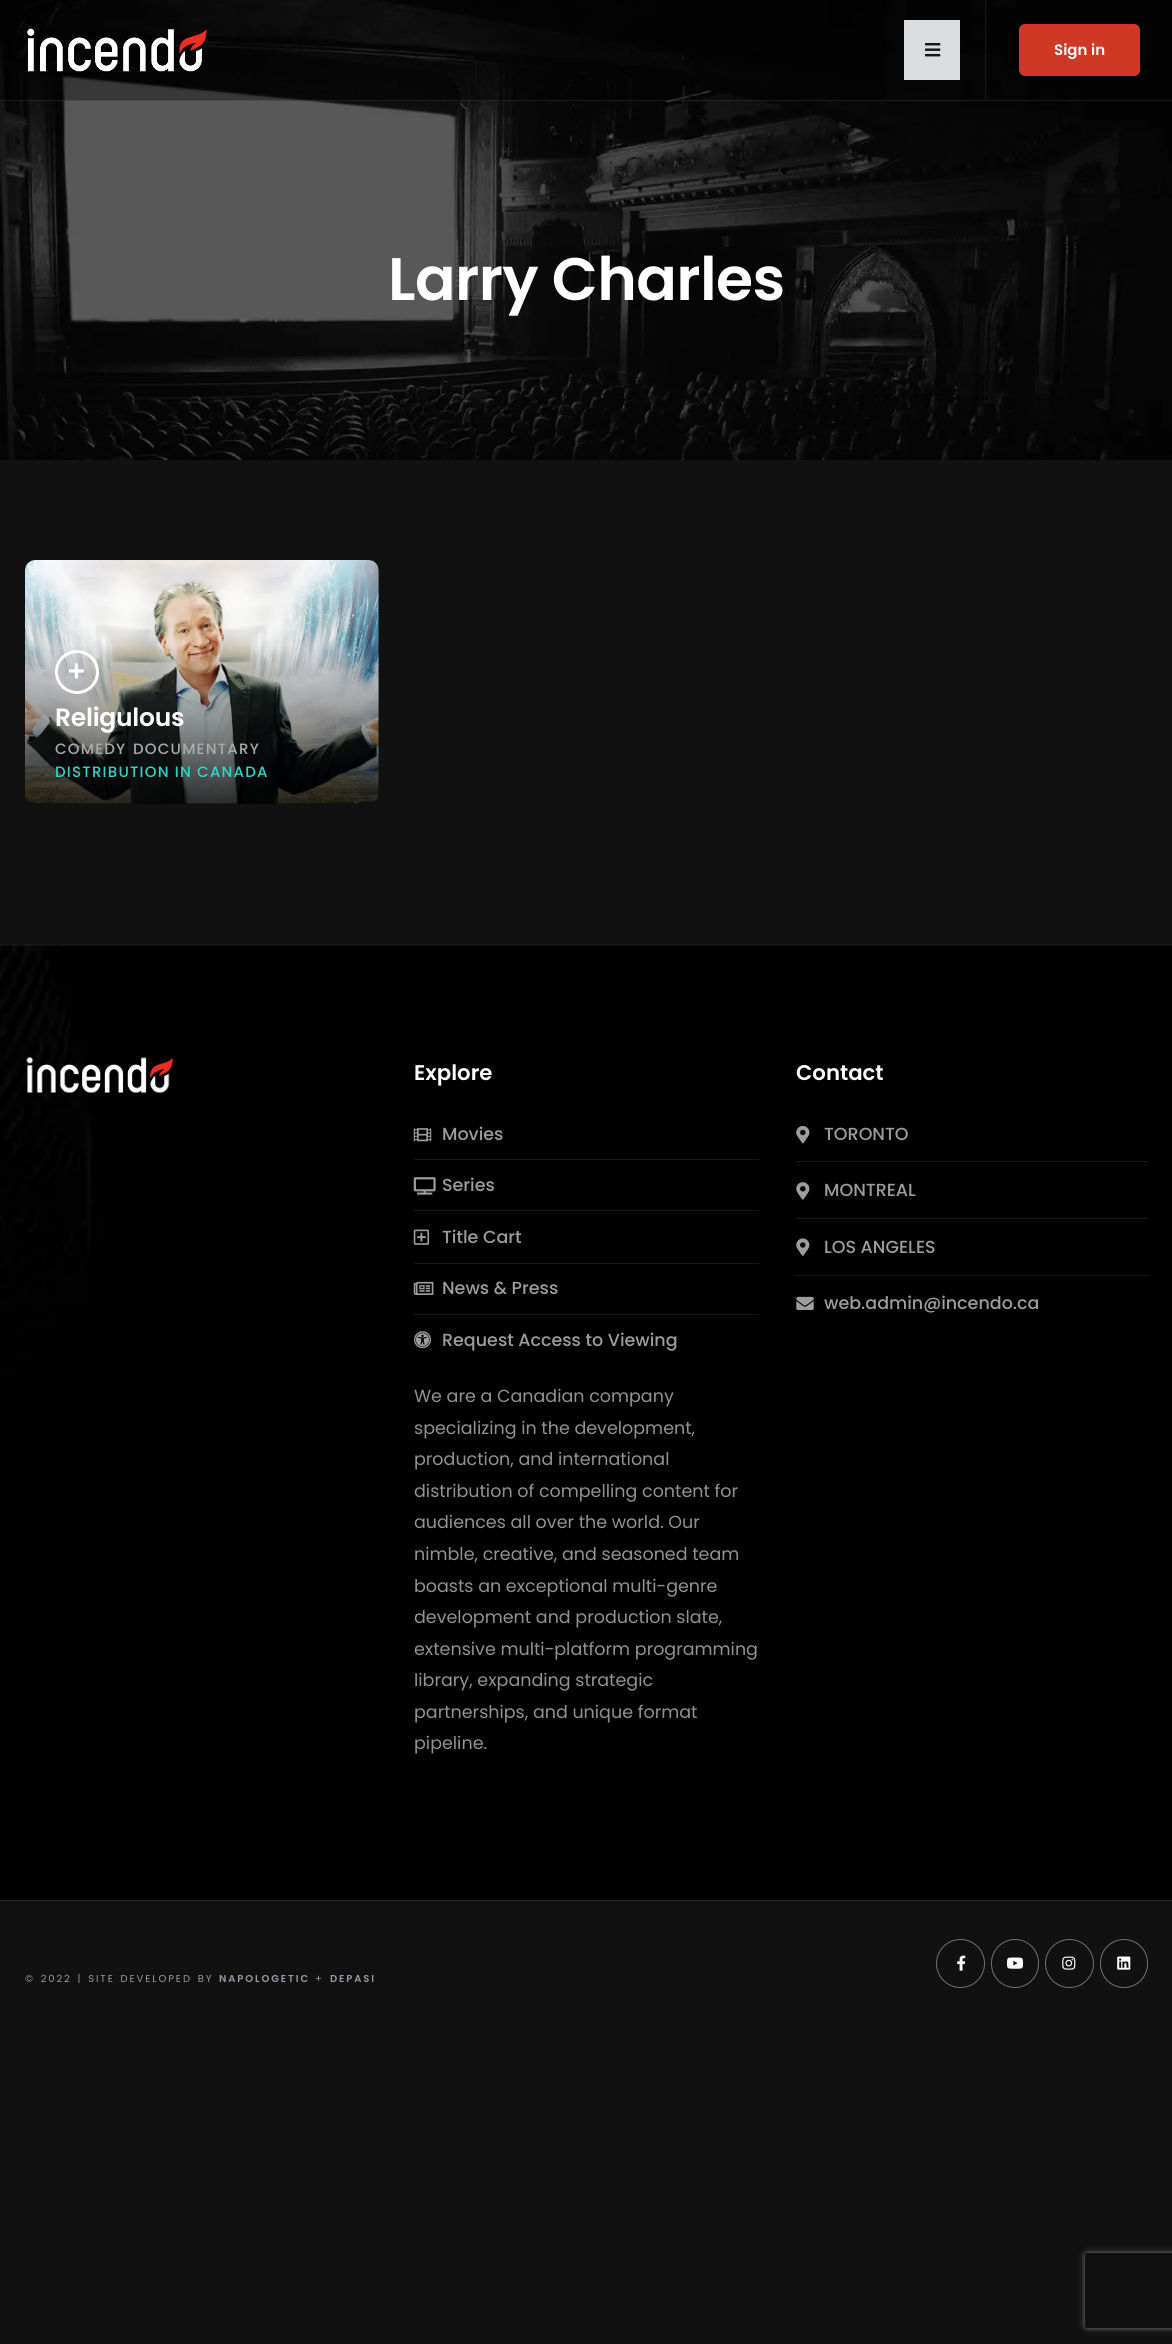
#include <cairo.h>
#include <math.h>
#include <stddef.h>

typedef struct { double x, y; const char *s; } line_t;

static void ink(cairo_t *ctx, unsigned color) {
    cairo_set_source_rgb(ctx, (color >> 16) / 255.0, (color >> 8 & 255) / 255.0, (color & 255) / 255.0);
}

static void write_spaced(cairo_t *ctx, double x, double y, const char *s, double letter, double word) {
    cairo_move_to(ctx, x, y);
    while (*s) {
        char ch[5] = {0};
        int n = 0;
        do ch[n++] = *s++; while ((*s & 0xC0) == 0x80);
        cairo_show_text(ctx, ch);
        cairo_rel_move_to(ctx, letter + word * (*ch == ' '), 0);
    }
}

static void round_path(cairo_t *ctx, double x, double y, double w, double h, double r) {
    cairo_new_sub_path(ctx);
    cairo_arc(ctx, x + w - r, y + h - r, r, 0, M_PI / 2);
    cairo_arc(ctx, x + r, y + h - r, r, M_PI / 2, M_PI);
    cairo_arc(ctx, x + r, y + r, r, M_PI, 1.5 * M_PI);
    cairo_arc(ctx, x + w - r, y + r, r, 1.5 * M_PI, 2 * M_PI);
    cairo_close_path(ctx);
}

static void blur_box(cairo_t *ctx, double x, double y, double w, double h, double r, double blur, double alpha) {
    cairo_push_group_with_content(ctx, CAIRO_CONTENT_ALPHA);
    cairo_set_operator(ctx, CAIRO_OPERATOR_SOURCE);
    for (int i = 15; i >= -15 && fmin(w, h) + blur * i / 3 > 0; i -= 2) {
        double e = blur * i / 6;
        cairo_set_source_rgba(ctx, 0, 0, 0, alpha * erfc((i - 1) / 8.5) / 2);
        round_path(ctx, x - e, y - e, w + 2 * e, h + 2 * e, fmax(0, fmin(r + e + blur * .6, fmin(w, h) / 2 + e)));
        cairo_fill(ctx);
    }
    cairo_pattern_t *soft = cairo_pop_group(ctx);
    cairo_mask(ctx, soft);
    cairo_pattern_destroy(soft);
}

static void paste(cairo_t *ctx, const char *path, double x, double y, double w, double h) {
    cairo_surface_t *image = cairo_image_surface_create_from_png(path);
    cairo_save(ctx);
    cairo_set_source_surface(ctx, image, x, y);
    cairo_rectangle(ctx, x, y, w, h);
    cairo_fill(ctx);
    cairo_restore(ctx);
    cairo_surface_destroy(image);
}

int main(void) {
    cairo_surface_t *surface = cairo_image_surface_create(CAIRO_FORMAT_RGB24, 1172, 2344);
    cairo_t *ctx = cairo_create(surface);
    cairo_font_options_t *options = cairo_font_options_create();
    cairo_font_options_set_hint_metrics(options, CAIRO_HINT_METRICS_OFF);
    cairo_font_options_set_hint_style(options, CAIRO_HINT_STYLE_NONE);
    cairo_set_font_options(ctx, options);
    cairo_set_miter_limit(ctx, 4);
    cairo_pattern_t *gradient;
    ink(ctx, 0x111111);
    cairo_paint(ctx);
    paste(ctx, "media/3.png", 0, 0, 1172, 460);
    cairo_set_source_rgba(ctx, 0, 0, 0, 0.37);
    cairo_rectangle(ctx, 0, 0, 887, 101);
    cairo_fill(ctx);
    cairo_set_source_rgba(ctx, 1, 1, 1, 0.09);
    cairo_rectangle(ctx, 0, 100, 1172, 1);
    cairo_fill(ctx);
    paste(ctx, "media/1.png", 27, 28, 180, 44);
    ink(ctx, 0x191919);
    cairo_rectangle(ctx, 985, 0, 1, 100);
    cairo_fill(ctx);
    ink(ctx, 0xD9DDE0);
    cairo_rectangle(ctx, 904, 20, 56, 60);
    cairo_fill(ctx);
    paste(ctx, "media/2.png", 925, 43, 16, 14);
    ink(ctx, 0xCE3824);
    round_path(ctx, 1019, 24, 121, 52, 6);
    cairo_fill(ctx);
    cairo_select_font_face(ctx, "Poppins SemiBold", CAIRO_FONT_SLANT_NORMAL, CAIRO_FONT_WEIGHT_NORMAL);
    cairo_set_font_size(ctx, 15);
    ink(ctx, 0xFFFFFF);
    cairo_move_to(ctx, 1054, 55);
    cairo_show_text(ctx, "Sign in");
    cairo_set_font_size(ctx, 60);
    write_spaced(ctx, 388, 300, "Larry Charles", -0.6, 0);
    paste(ctx, "media/4.png", 25, 560, 354, 244);
    gradient = cairo_pattern_create_linear(202, 560, 202, 804);
    cairo_pattern_add_color_stop_rgba(gradient, 0.35, 0, 0, 0, 0);
    cairo_pattern_add_color_stop_rgba(gradient, 1, 0, 0, 0, 0.8);
    cairo_set_source(ctx, gradient);
    cairo_pattern_destroy(gradient);
    round_path(ctx, 25, 560, 354, 244, 10);
    cairo_fill(ctx);
    cairo_arc(ctx, 77, 672, 20.5, 0, 2 * M_PI);
    ink(ctx, 0xFFFFFF);
    cairo_set_line_width(ctx, 3);
    cairo_stroke(ctx);
    paste(ctx, "media/5.png", 68, 663, 16, 16);
    cairo_set_font_size(ctx, 25);
    write_spaced(ctx, 55, 726, "Religulous", -0.25, 0);
    cairo_select_font_face(ctx, "Poppins Medium", CAIRO_FONT_SLANT_NORMAL, CAIRO_FONT_WEIGHT_NORMAL);
    cairo_set_font_size(ctx, 15);
    ink(ctx, 0xABABAB);
    write_spaced(ctx, 55, 754, "COMEDY", 1.2, 0);
    write_spaced(ctx, 133, 754, "DOCUMENTARY", 1.2, 0);
    ink(ctx, 0x32D5C9);
    write_spaced(ctx, 55, 777, "DISTRIBUTION IN CANADA", 1.2, 0);
    paste(ctx, "media/6.png", 0, 944, 1172, 956);
    paste(ctx, "media/7.png", 26, 1057, 148, 36);
    cairo_select_font_face(ctx, "Poppins SemiBold", CAIRO_FONT_SLANT_NORMAL, CAIRO_FONT_WEIGHT_NORMAL);
    cairo_set_font_size(ctx, 21.25);
    ink(ctx, 0xFFFFFF);
    cairo_move_to(ctx, 414, 1080);
    cairo_show_text(ctx, "Explore");
    paste(ctx, "media/8.png", 413, 1128, 19, 14);
    cairo_select_font_face(ctx, "Poppins Medium", CAIRO_FONT_SLANT_NORMAL, CAIRO_FONT_WEIGHT_NORMAL);
    cairo_set_font_size(ctx, 17.5);
    ink(ctx, 0x9D9D9D);
    cairo_move_to(ctx, 442, 1140);
    cairo_show_text(ctx, "Movies");
    ink(ctx, 0x181818);
    cairo_rectangle(ctx, 414, 1159, 345, 1);
    cairo_fill(ctx);
    paste(ctx, "media/9.png", 413, 1177, 23, 18);
    ink(ctx, 0x9D9D9D);
    cairo_move_to(ctx, 442, 1191);
    cairo_show_text(ctx, "Series");
    ink(ctx, 0x181818);
    cairo_rectangle(ctx, 414, 1210, 345, 1);
    cairo_fill(ctx);
    paste(ctx, "media/10.png", 413, 1229, 17, 16);
    ink(ctx, 0x9D9D9D);
    cairo_move_to(ctx, 442, 1243);
    cairo_show_text(ctx, "Title Cart");
    ink(ctx, 0x181818);
    cairo_rectangle(ctx, 414, 1263, 345, 1);
    cairo_fill(ctx);
    paste(ctx, "media/11.png", 413, 1281, 21, 14);
    ink(ctx, 0x9D9D9D);
    cairo_move_to(ctx, 442, 1294);
    cairo_show_text(ctx, "News & Press");
    ink(ctx, 0x181818);
    cairo_rectangle(ctx, 414, 1314, 345, 1);
    cairo_fill(ctx);
    paste(ctx, "media/12.png", 414, 1331, 17, 18);
    ink(ctx, 0x9D9D9D);
    cairo_move_to(ctx, 442, 1346);
    cairo_show_text(ctx, "Request Access to Viewing");
    cairo_select_font_face(ctx, "Poppins", CAIRO_FONT_SLANT_NORMAL, CAIRO_FONT_WEIGHT_NORMAL);
    ink(ctx, 0x929292);
    {
        static const line_t items[] = {
            {414, 1402, "We are a Canadian company"},
            {414, 1434, "specializing in the development,"},
            {414, 1465, "production, and international"},
            {414, 1497, "distribution of compelling content for"},
            {414, 1528, "audiences all over the world. Our"},
            {414, 1560, "nimble, creative, and seasoned team"},
            {414, 1592, "boasts an exceptional multi-genre"},
            {414, 1623, "development and production slate,"},
            {414, 1655, "extensive multi-platform programming"},
            {414, 1686, "library, expanding strategic"},
            {414, 1718, "partnerships, and unique format"},
            {414, 1749, "pipeline."},
        };
        for (size_t i = 0; i < sizeof items / sizeof *items; i++) {
            cairo_move_to(ctx, items[i].x, items[i].y);
            cairo_show_text(ctx, items[i].s);
        }
    }
    cairo_select_font_face(ctx, "Poppins SemiBold", CAIRO_FONT_SLANT_NORMAL, CAIRO_FONT_WEIGHT_NORMAL);
    cairo_set_font_size(ctx, 21.25);
    ink(ctx, 0xFFFFFF);
    cairo_move_to(ctx, 796, 1080);
    cairo_show_text(ctx, "Contact");
    paste(ctx, "media/13.png", 796, 1125, 14, 19);
    cairo_select_font_face(ctx, "Poppins Medium", CAIRO_FONT_SLANT_NORMAL, CAIRO_FONT_WEIGHT_NORMAL);
    cairo_set_font_size(ctx, 17.5);
    ink(ctx, 0x9D9D9D);
    cairo_move_to(ctx, 824, 1140);
    cairo_show_text(ctx, "TORONTO");
    ink(ctx, 0x181818);
    cairo_rectangle(ctx, 796, 1161, 352, 1);
    cairo_fill(ctx);
    paste(ctx, "media/14.png", 796, 1182, 14, 18);
    ink(ctx, 0x9D9D9D);
    cairo_move_to(ctx, 824, 1196);
    cairo_show_text(ctx, "MONTREAL");
    ink(ctx, 0x181818);
    cairo_rectangle(ctx, 796, 1218, 352, 1);
    cairo_fill(ctx);
    paste(ctx, "media/15.png", 796, 1238, 14, 18);
    ink(ctx, 0x9D9D9D);
    cairo_move_to(ctx, 824, 1253);
    cairo_show_text(ctx, "LOS ANGELES");
    ink(ctx, 0x181818);
    cairo_rectangle(ctx, 796, 1275, 352, 1);
    cairo_fill(ctx);
    paste(ctx, "media/16.png", 796, 1296, 18, 14);
    ink(ctx, 0x9D9D9D);
    cairo_move_to(ctx, 824, 1309);
    cairo_show_text(ctx, "web.admin@incendo.ca");
    ink(ctx, 0x242424);
    cairo_rectangle(ctx, 0, 1900, 1172, 1);
    cairo_fill(ctx);
    cairo_select_font_face(ctx, "Poppins", CAIRO_FONT_SLANT_NORMAL, CAIRO_FONT_WEIGHT_NORMAL);
    cairo_set_font_size(ctx, 10);
    ink(ctx, 0x9499A5);
    write_spaced(ctx, 25, 1982, "© 2022 | SITE DEVELOPED BY", 1.9, 1.25);
    cairo_select_font_face(ctx, "Poppins SemiBold", CAIRO_FONT_SLANT_NORMAL, CAIRO_FONT_WEIGHT_NORMAL);
    write_spaced(ctx, 219, 1982, "NAPOLOGETIC", 1.9, 0);
    cairo_select_font_face(ctx, "Poppins", CAIRO_FONT_SLANT_NORMAL, CAIRO_FONT_WEIGHT_NORMAL);
    write_spaced(ctx, 315, 1982, "+", 1.9, 0);
    cairo_select_font_face(ctx, "Poppins SemiBold", CAIRO_FONT_SLANT_NORMAL, CAIRO_FONT_WEIGHT_NORMAL);
    write_spaced(ctx, 330, 1982, "DEPASI", 1.9, 0);
    cairo_new_path(ctx);
    cairo_arc(ctx, 960.5, 1963.5, 24, 0, 2 * M_PI);
    ink(ctx, 0x707070);
    cairo_set_line_width(ctx, 1);
    cairo_stroke(ctx);
    paste(ctx, "media/17.png", 957, 1955, 9, 16);
    round_path(ctx, 991.5, 1939.5, 47, 48, 23.5);
    cairo_stroke(ctx);
    paste(ctx, "media/18.png", 1007, 1957, 16, 12);
    cairo_arc(ctx, 1069.5, 1963.5, 24, 0, 2 * M_PI);
    cairo_stroke(ctx);
    paste(ctx, "media/19.png", 1062, 1956, 14, 14);
    round_path(ctx, 1100.5, 1939.5, 47, 48, 23.5);
    cairo_stroke(ctx);
    paste(ctx, "media/20.png", 1117, 1956, 14, 14);
    cairo_save(ctx);
    cairo_set_fill_rule(ctx, CAIRO_FILL_RULE_EVEN_ODD);
    cairo_new_path(ctx);
    cairo_move_to(ctx, 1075, 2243);
    cairo_line_to(ctx, 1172, 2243);
    cairo_line_to(ctx, 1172, 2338);
    cairo_line_to(ctx, 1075, 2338);
    cairo_close_path(ctx);
    cairo_move_to(ctx, 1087.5, 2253);
    cairo_line_to(ctx, 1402.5, 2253);
    cairo_curve_to(ctx, 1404, 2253, 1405, 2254, 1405, 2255.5);
    cairo_line_to(ctx, 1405, 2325.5);
    cairo_curve_to(ctx, 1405, 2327, 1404, 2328, 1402.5, 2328);
    cairo_line_to(ctx, 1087.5, 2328);
    cairo_curve_to(ctx, 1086, 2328, 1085, 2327, 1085, 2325.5);
    cairo_line_to(ctx, 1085, 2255.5);
    cairo_curve_to(ctx, 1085, 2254, 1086, 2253, 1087.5, 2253);
    cairo_close_path(ctx);
    cairo_clip(ctx);
    ink(ctx, 0x808080);
    blur_box(ctx, 1085, 2253, 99, 75, 2.5, 3, 1);
    cairo_restore(ctx);
    cairo_surface_write_to_png(surface, "image.png");
    cairo_font_options_destroy(options);
    cairo_destroy(ctx);
    cairo_surface_destroy(surface);
    return 0;
}
